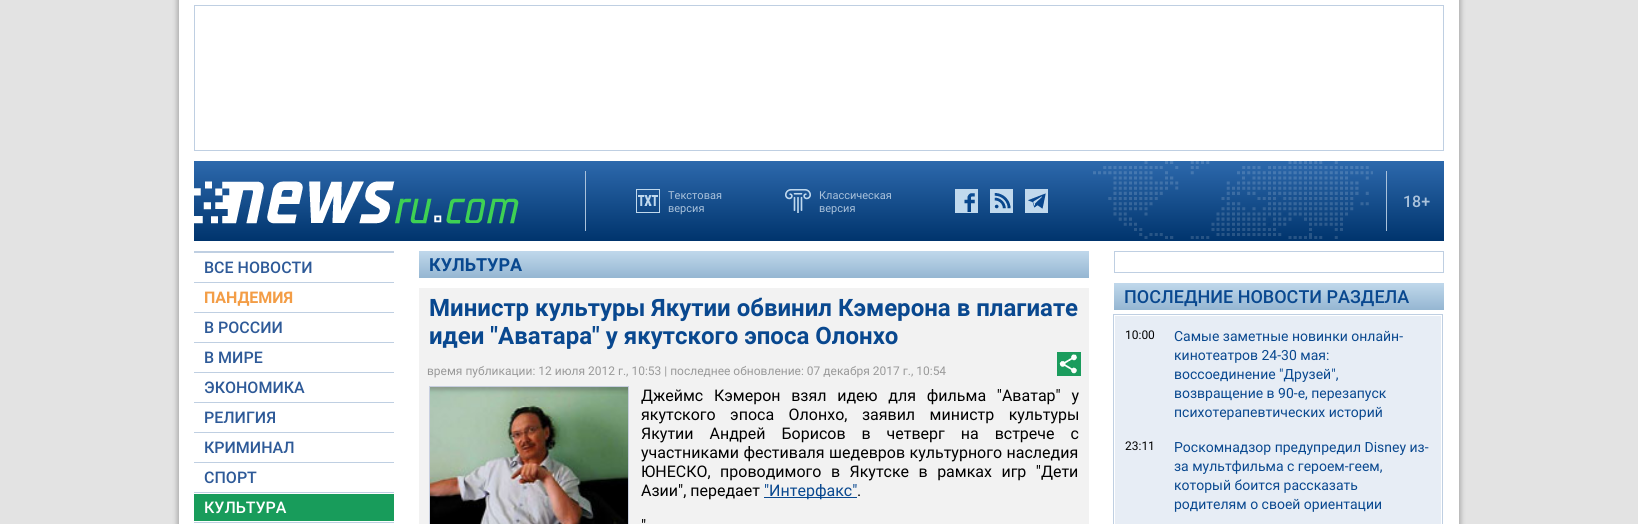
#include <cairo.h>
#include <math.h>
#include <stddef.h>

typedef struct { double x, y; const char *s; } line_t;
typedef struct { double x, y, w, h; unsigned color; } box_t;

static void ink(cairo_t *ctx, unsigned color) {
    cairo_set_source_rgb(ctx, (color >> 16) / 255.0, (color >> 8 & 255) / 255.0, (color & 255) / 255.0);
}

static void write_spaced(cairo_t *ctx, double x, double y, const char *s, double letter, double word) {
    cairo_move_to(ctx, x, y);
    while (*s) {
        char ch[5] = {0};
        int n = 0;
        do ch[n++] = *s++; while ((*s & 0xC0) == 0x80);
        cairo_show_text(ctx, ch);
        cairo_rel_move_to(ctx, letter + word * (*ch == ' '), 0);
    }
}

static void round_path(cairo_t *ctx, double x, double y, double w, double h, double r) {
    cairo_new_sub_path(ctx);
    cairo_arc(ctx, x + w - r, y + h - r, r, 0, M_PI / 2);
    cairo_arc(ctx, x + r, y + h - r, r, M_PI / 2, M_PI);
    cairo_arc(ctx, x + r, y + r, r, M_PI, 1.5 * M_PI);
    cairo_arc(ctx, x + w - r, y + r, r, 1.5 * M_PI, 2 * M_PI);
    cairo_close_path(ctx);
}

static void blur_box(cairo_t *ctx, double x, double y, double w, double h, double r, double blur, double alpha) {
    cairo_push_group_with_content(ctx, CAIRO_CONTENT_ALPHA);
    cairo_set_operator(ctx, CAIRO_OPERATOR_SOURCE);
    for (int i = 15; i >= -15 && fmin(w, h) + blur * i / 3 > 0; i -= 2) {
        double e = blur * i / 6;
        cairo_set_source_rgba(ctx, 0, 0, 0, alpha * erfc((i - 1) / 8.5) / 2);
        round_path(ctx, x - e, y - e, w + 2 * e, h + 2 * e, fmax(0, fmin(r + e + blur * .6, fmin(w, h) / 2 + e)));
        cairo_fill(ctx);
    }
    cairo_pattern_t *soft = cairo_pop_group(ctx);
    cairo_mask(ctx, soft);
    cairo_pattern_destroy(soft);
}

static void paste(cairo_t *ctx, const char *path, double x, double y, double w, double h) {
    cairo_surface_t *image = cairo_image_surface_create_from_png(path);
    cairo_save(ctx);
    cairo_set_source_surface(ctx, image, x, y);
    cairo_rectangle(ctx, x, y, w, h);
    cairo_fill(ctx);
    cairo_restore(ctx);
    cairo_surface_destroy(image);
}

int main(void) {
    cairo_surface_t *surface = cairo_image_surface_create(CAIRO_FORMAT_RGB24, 1638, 524);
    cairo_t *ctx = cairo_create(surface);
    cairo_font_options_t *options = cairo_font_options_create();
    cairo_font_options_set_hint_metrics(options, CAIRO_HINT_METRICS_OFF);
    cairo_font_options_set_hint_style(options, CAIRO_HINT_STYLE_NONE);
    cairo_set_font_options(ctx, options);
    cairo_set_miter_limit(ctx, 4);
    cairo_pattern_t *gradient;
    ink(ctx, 0xE3E3E3);
    cairo_paint(ctx);
    ink(ctx, 0xFFFFFF);
    cairo_rectangle(ctx, 194, 0, 1250, 524);
    cairo_fill(ctx);
    cairo_save(ctx);
    cairo_rectangle(ctx, 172, 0, 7, 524);
    cairo_clip(ctx);
    ink(ctx, 0xADADAD);
    blur_box(ctx, 177, -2, 1254, 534, 0, 2.5, 1);
    cairo_restore(ctx);
    cairo_save(ctx);
    cairo_rectangle(ctx, 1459, 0, 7, 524);
    cairo_clip(ctx);
    ink(ctx, 0xADADAD);
    blur_box(ctx, 207, -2, 1254, 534, 0, 2.5, 1);
    cairo_restore(ctx);
    cairo_rectangle(ctx, 194.5, 5.5, 1249, 145);
    ink(ctx, 0xBFCFE2);
    cairo_set_line_width(ctx, 1);
    cairo_stroke(ctx);
    gradient = cairo_pattern_create_linear(819, 161, 819, 241);
    cairo_pattern_add_color_stop_rgba(gradient, 0, 0.176, 0.412, 0.678, 1);
    cairo_pattern_add_color_stop_rgba(gradient, 1, 0, 0.204, 0.427, 1);
    cairo_set_source(ctx, gradient);
    cairo_pattern_destroy(gradient);
    cairo_rectangle(ctx, 194, 161, 1250, 80);
    cairo_fill(ctx);
    paste(ctx, "media/1.png", 194, 181, 325, 43);
    ink(ctx, 0xAAC2DB);
    cairo_rectangle(ctx, 585, 171, 1, 60);
    cairo_fill(ctx);
    paste(ctx, "media/2.png", 636, 189, 24, 24);
    paste(ctx, "media/3.png", 785, 189, 26, 24);
    paste(ctx, "media/4.png", 955, 189, 23, 24);
    paste(ctx, "media/5.png", 990, 189, 23, 24);
    ink(ctx, 0x08468D);
    cairo_rectangle(ctx, 1028, 193, 18, 16);
    cairo_fill(ctx);
    paste(ctx, "media/6.png", 1025, 189, 23, 24);
    paste(ctx, "media/7.png", 1093, 161, 280, 78);
    {
        static const box_t items[] = {
            {1386, 171, 1, 60, 0xAAC2DB},
            {194, 251, 200, 2, 0xBFCFE2},
            {194, 282, 200, 1, 0xBFCFE2},
            {194, 312, 200, 1, 0xBFCFE2},
            {194, 342, 200, 1, 0xBFCFE2},
            {194, 372, 200, 1, 0xBFCFE2},
            {194, 402, 200, 1, 0xBFCFE2},
            {194, 432, 200, 1, 0xBFCFE2},
            {194, 462, 200, 1, 0xBFCFE2},
            {194, 492, 200, 1, 0xBFCFE2},
            {194, 522, 200, 1, 0xBFCFE2},
            {194, 494, 200, 27, 0x189C5B},
        };
        for (size_t i = 0; i < sizeof items / sizeof *items; i++) {
            ink(ctx, items[i].color);
            cairo_rectangle(ctx, items[i].x, items[i].y, items[i].w, items[i].h);
            cairo_fill(ctx);
        }
    }
    gradient = cairo_pattern_create_linear(754, 251, 754, 278);
    cairo_pattern_add_color_stop_rgba(gradient, 0, 0.753, 0.847, 0.925, 1);
    cairo_pattern_add_color_stop_rgba(gradient, 1, 0.584, 0.714, 0.82, 1);
    cairo_set_source(ctx, gradient);
    cairo_pattern_destroy(gradient);
    cairo_rectangle(ctx, 419, 251, 670, 27);
    cairo_fill(ctx);
    ink(ctx, 0xF2F2F2);
    cairo_rectangle(ctx, 419, 288, 670, 236);
    cairo_fill(ctx);
    paste(ctx, "media/8.png", 1057, 352, 24, 24);
    cairo_rectangle(ctx, 429.5, 386.5, 199, 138);
    ink(ctx, 0xC7CEDF);
    cairo_stroke(ctx);
    paste(ctx, "media/9.png", 430, 387, 198, 137);
    ink(ctx, 0x09488F);
    cairo_rectangle(ctx, 764, 497, 93, 1);
    cairo_fill(ctx);
    cairo_rectangle(ctx, 1114.5, 251.5, 329, 21);
    ink(ctx, 0xBFCFE2);
    cairo_stroke(ctx);
    gradient = cairo_pattern_create_linear(1279, 283, 1279, 310);
    cairo_pattern_add_color_stop_rgba(gradient, 0, 0.753, 0.847, 0.925, 1);
    cairo_pattern_add_color_stop_rgba(gradient, 1, 0.584, 0.714, 0.82, 1);
    cairo_set_source(ctx, gradient);
    cairo_pattern_destroy(gradient);
    cairo_rectangle(ctx, 1114, 283, 330, 27);
    cairo_fill(ctx);
    ink(ctx, 0xE7EDF5);
    cairo_rectangle(ctx, 1115, 316, 326, 208);
    cairo_fill(ctx);
    cairo_rectangle(ctx, 1113.5, 314.5, 329, 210);
    ink(ctx, 0xBFCFE2);
    cairo_stroke(ctx);
    cairo_rectangle(ctx, 186.5, -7.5, 1265, 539);
    ink(ctx, 0xFFFFFF);
    cairo_set_line_width(ctx, 15);
    cairo_stroke(ctx);
    cairo_select_font_face(ctx, "Roboto", CAIRO_FONT_SLANT_NORMAL, CAIRO_FONT_WEIGHT_NORMAL);
    cairo_set_font_size(ctx, 11);
    ink(ctx, 0xAAC2DB);
    {
        static const line_t items[] = {
            {668, 199, "Текстовая"},
            {668, 212, "версия"},
            {819, 199, "Классическая"},
            {819, 212, "версия"},
        };
        for (size_t i = 0; i < sizeof items / sizeof *items; i++) {
            cairo_move_to(ctx, items[i].x, items[i].y);
            cairo_show_text(ctx, items[i].s);
        }
    }
    cairo_select_font_face(ctx, "Roboto Medium", CAIRO_FONT_SLANT_NORMAL, CAIRO_FONT_WEIGHT_NORMAL);
    cairo_set_font_size(ctx, 16);
    cairo_move_to(ctx, 1403, 207);
    cairo_show_text(ctx, "18+");
    ink(ctx, 0x2E5A98);
    cairo_move_to(ctx, 204, 273);
    cairo_show_text(ctx, "ВСЕ НОВОСТИ");
    cairo_select_font_face(ctx, "Roboto", CAIRO_FONT_SLANT_NORMAL, CAIRO_FONT_WEIGHT_BOLD);
    ink(ctx, 0xF39D46);
    cairo_move_to(ctx, 204, 303);
    cairo_show_text(ctx, "ПАНДЕМИЯ");
    cairo_select_font_face(ctx, "Roboto Medium", CAIRO_FONT_SLANT_NORMAL, CAIRO_FONT_WEIGHT_NORMAL);
    ink(ctx, 0x2E5A98);
    {
        static const line_t items[] = {
            {204, 333, "В РОССИИ"},
            {204, 363, "В МИРЕ"},
            {204, 393, "ЭКОНОМИКА"},
            {204, 423, "РЕЛИГИЯ"},
            {204, 453, "КРИМИНАЛ"},
            {204, 483, "СПОРТ"},
        };
        for (size_t i = 0; i < sizeof items / sizeof *items; i++) {
            cairo_move_to(ctx, items[i].x, items[i].y);
            cairo_show_text(ctx, items[i].s);
        }
    }
    ink(ctx, 0xFFFFFF);
    cairo_move_to(ctx, 204, 513);
    cairo_show_text(ctx, "КУЛЬТУРА");
    cairo_select_font_face(ctx, "Roboto", CAIRO_FONT_SLANT_NORMAL, CAIRO_FONT_WEIGHT_BOLD);
    cairo_set_font_size(ctx, 18);
    ink(ctx, 0x09488F);
    cairo_move_to(ctx, 429, 271);
    cairo_show_text(ctx, "КУЛЬТУРА");
    cairo_set_font_size(ctx, 24);
    cairo_move_to(ctx, 429, 316);
    cairo_show_text(ctx, "Министр культуры Якутии обвинил Кэмерона в плагиате");
    cairo_move_to(ctx, 429, 344);
    cairo_show_text(ctx, "идеи \"Аватара\" у якутского эпоса Олонхо");
    cairo_select_font_face(ctx, "Roboto", CAIRO_FONT_SLANT_NORMAL, CAIRO_FONT_WEIGHT_NORMAL);
    cairo_set_font_size(ctx, 12);
    ink(ctx, 0x999999);
    cairo_move_to(ctx, 427, 375);
    cairo_show_text(ctx, "время публикации: 12 июля 2012 г., 10:53 | последнее обновление: 07 декабря 2017 г., 10:54");
    cairo_set_font_size(ctx, 16);
    ink(ctx, 0x000000);
    write_spaced(ctx, 641, 401, "Джеймс Кэмерон взял идею для фильма \"Аватар\" у", 0, 6.75);
    write_spaced(ctx, 641, 420, "якутского эпоса Олонхо, заявил министр культуры", 0, 10.5);
    write_spaced(ctx, 641, 439, "Якутии Андрей Борисов в четверг на встрече с", 0, 12);
    write_spaced(ctx, 641, 458, "участниками фестиваля шедевров культурного наследия", 0, 0.5);
    write_spaced(ctx, 641, 477, "ЮНЕСКО, проводимого в Якутске в рамках игр \"Дети", 0, 5.5);
    cairo_move_to(ctx, 641, 496);
    cairo_show_text(ctx, "Азии\", передает");
    ink(ctx, 0x09488F);
    cairo_move_to(ctx, 764, 496);
    cairo_show_text(ctx, "\"Интерфакс\"");
    ink(ctx, 0x000000);
    cairo_move_to(ctx, 857, 496);
    cairo_show_text(ctx, ".");
    write_spaced(ctx, 641, 531, "\"", 0, 4);
    cairo_select_font_face(ctx, "Roboto Medium", CAIRO_FONT_SLANT_NORMAL, CAIRO_FONT_WEIGHT_NORMAL);
    cairo_set_font_size(ctx, 18);
    ink(ctx, 0x09488F);
    cairo_move_to(ctx, 1124, 303);
    cairo_show_text(ctx, "ПОСЛЕДНИЕ НОВОСТИ РАЗДЕЛА");
    cairo_select_font_face(ctx, "Roboto", CAIRO_FONT_SLANT_NORMAL, CAIRO_FONT_WEIGHT_NORMAL);
    cairo_set_font_size(ctx, 12);
    ink(ctx, 0x000000);
    cairo_move_to(ctx, 1125, 339);
    cairo_show_text(ctx, "10:00");
    cairo_set_font_size(ctx, 14);
    ink(ctx, 0x09488F);
    {
        static const line_t items[] = {
            {1174, 341, "Самые заметные новинки онлайн-"},
            {1174, 360, "кинотеатров 24-30 мая:"},
            {1174, 379, "воссоединение \"Друзей\","},
            {1174, 398, "возвращение в 90-е, перезапуск"},
            {1174, 417, "психотерапевтических историй"},
        };
        for (size_t i = 0; i < sizeof items / sizeof *items; i++) {
            cairo_move_to(ctx, items[i].x, items[i].y);
            cairo_show_text(ctx, items[i].s);
        }
    }
    cairo_set_font_size(ctx, 12);
    ink(ctx, 0x000000);
    cairo_move_to(ctx, 1125, 450);
    cairo_show_text(ctx, "23:11");
    cairo_set_font_size(ctx, 14);
    ink(ctx, 0x09488F);
    {
        static const line_t items[] = {
            {1174, 452, "Роскомнадзор предупредил Disney из-"},
            {1174, 471, "за мультфильма c героем-геем,"},
            {1174, 490, "который боится рассказать"},
            {1174, 509, "родителям о своей ориентации"},
        };
        for (size_t i = 0; i < sizeof items / sizeof *items; i++) {
            cairo_move_to(ctx, items[i].x, items[i].y);
            cairo_show_text(ctx, items[i].s);
        }
    }
    cairo_surface_write_to_png(surface, "image.png");
    cairo_font_options_destroy(options);
    cairo_destroy(ctx);
    cairo_surface_destroy(surface);
    return 0;
}
